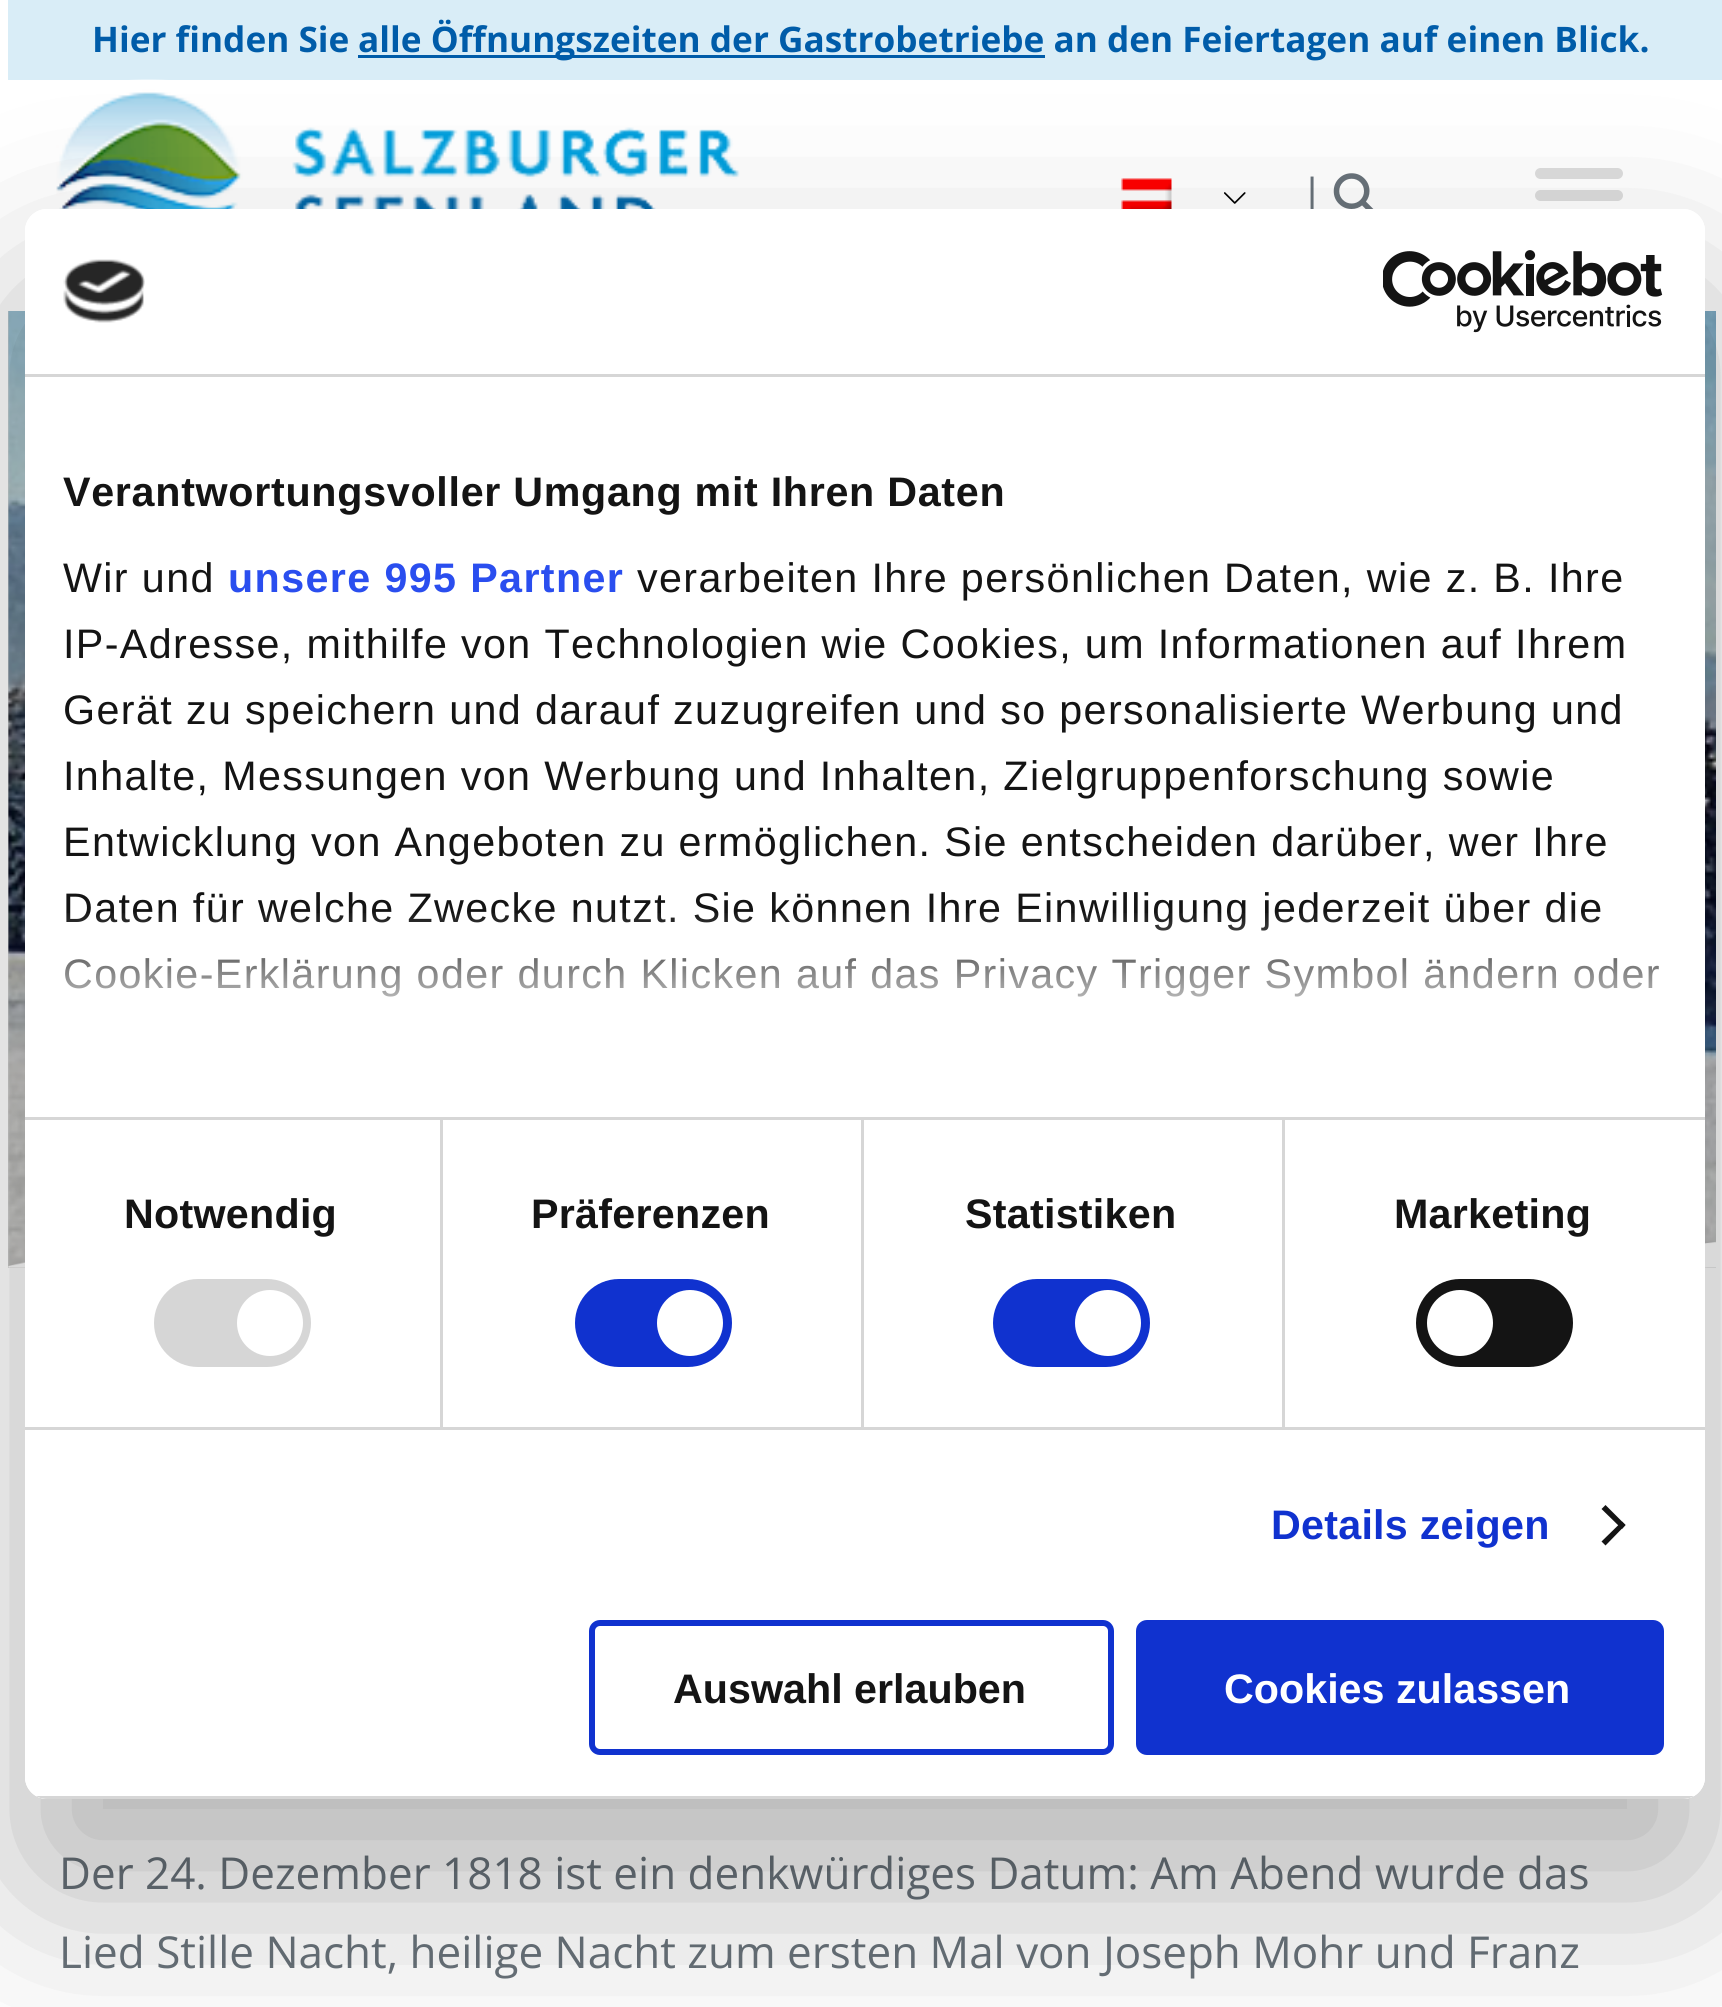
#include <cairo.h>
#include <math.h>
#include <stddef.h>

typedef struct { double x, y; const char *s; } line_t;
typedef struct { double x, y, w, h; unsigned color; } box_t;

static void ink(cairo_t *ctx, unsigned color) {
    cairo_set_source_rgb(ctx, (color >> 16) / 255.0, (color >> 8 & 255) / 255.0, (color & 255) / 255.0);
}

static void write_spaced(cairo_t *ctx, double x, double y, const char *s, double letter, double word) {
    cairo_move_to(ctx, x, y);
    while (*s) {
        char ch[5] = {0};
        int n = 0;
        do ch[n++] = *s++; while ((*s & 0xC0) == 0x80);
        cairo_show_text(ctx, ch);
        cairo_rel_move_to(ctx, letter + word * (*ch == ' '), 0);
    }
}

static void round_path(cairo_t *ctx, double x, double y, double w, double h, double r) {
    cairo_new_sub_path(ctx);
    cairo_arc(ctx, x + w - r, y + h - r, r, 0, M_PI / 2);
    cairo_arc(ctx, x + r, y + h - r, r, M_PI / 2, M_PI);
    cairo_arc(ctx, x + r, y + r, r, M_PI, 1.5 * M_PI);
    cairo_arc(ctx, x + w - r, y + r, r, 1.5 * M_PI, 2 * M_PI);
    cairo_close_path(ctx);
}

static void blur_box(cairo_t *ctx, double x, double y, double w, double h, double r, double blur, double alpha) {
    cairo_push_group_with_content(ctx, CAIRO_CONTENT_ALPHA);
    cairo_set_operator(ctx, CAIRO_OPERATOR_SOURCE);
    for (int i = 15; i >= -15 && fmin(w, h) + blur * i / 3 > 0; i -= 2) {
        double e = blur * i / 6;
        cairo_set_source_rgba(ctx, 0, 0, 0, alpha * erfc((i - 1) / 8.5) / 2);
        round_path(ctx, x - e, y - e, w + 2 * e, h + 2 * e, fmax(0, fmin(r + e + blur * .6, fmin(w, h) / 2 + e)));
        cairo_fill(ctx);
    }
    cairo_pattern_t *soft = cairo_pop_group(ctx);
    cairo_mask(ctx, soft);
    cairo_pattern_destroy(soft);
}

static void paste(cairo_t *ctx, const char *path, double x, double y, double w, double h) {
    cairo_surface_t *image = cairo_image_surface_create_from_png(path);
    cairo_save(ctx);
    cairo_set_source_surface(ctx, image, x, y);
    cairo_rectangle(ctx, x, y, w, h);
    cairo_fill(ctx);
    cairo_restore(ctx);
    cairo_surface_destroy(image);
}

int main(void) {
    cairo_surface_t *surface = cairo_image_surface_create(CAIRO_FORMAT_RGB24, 1722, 2007);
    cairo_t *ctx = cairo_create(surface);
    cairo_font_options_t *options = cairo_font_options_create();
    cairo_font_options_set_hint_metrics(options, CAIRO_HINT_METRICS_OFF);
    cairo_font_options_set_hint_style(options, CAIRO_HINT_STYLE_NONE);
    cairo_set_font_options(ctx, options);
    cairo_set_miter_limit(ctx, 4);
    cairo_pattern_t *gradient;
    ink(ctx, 0xFFFFFF);
    cairo_paint(ctx);
    ink(ctx, 0xD9EDF7);
    cairo_rectangle(ctx, 8, 0, 1714, 80);
    cairo_fill(ctx);
    cairo_select_font_face(ctx, "Open Sans", CAIRO_FONT_SLANT_NORMAL, CAIRO_FONT_WEIGHT_BOLD);
    cairo_set_font_size(ctx, 35.2);
    ink(ctx, 0x005CA9);
    cairo_move_to(ctx, 92, 52);
    cairo_show_text(ctx, "Hier finden Sie");
    cairo_rectangle(ctx, 358, 55, 687, 3);
    cairo_fill(ctx);
    cairo_move_to(ctx, 358, 52);
    cairo_show_text(ctx, "alle Öffnungszeiten der Gastrobetriebe an den Feiertagen auf einen Blick.");
    paste(ctx, "media/1.png", 56, 79, 684, 130);
    paste(ctx, "media/2.png", 1224, 192, 22, 12);
    paste(ctx, "media/3.png", 1121, 178, 51, 31);
    cairo_select_font_face(ctx, "Open Sans", CAIRO_FONT_SLANT_NORMAL, CAIRO_FONT_WEIGHT_NORMAL);
    cairo_set_font_size(ctx, 44);
    ink(ctx, 0x69727A);
    cairo_move_to(ctx, 1300, 210);
    cairo_show_text(ctx, "|");
    paste(ctx, "media/4.png", 1333, 173, 41, 36);
    ink(ctx, 0xDDDDDD);
    round_path(ctx, 1535, 168, 88, 11, 5.5);
    cairo_fill(ctx);
    round_path(ctx, 1535, 190, 88, 11, 5.5);
    cairo_fill(ctx);
    ink(ctx, 0xCCCCCC);
    cairo_rectangle(ctx, 8, 311, 1708, 957);
    cairo_fill(ctx);
    paste(ctx, "media/5.png", 8, 311, 1708, 957);
    paste(ctx, "media/6.png", 8, 1241, 1708, 27);
    ink(ctx, 0x69727A);
    cairo_move_to(ctx, 59, 1889);
    cairo_show_text(ctx, "Der 24. Dezember 1818 ist ein denkwürdiges Datum: Am Abend wurde das");
    cairo_move_to(ctx, 59, 1968);
    cairo_show_text(ctx, "Lied Stille Nacht, heilige Nacht zum ersten Mal von Joseph Mohr und Franz");
    cairo_save(ctx);
    cairo_set_fill_rule(ctx, CAIRO_FILL_RULE_EVEN_ODD);
    cairo_new_path(ctx);
    cairo_move_to(ctx, 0, 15);
    cairo_line_to(ctx, 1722, 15);
    cairo_line_to(ctx, 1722, 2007);
    cairo_line_to(ctx, 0, 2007);
    cairo_close_path(ctx);
    cairo_move_to(ctx, 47, 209);
    cairo_line_to(ctx, 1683, 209);
    cairo_curve_to(ctx, 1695, 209, 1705, 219, 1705, 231);
    cairo_line_to(ctx, 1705, 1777);
    cairo_curve_to(ctx, 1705, 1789, 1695, 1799, 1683, 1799);
    cairo_line_to(ctx, 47, 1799);
    cairo_curve_to(ctx, 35, 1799, 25, 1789, 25, 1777);
    cairo_line_to(ctx, 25, 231);
    cairo_curve_to(ctx, 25, 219, 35, 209, 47, 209);
    cairo_close_path(ctx);
    cairo_clip(ctx);
    ink(ctx, 0x000000);
    blur_box(ctx, 25, 297, 1680, 1590, 22, 93.5, 0.3);
    cairo_restore(ctx);
    ink(ctx, 0xFFFFFF);
    round_path(ctx, 25, 209, 1680, 1590, 22);
    cairo_fill(ctx);
    ink(ctx, 0xD6D6D6);
    cairo_rectangle(ctx, 25, 374, 1680, 3);
    cairo_fill(ctx);
    paste(ctx, "media/7.png", 63, 259, 82, 64);
    paste(ctx, "media/8.png", 1383, 250, 280, 83);
    {
        static const box_t items[] = {
            {440, 1119, 3, 308, 0xD6D6D6},
            {861, 1119, 3, 308, 0xD6D6D6},
            {1282, 1119, 3, 308, 0xD6D6D6},
            {25, 1117, 1680, 3, 0xD6D6D6},
        };
        for (size_t i = 0; i < sizeof items / sizeof *items; i++) {
            ink(ctx, items[i].color);
            cairo_rectangle(ctx, items[i].x, items[i].y, items[i].w, items[i].h);
            cairo_fill(ctx);
        }
    }
    cairo_select_font_face(ctx, "Liberation Sans", CAIRO_FONT_SLANT_NORMAL, CAIRO_FONT_WEIGHT_BOLD);
    cairo_set_font_size(ctx, 41.25);
    ink(ctx, 0x141414);
    write_spaced(ctx, 63, 506, "Verantwortungsvoller Umgang mit Ihren Daten", 0.7, 0);
    cairo_select_font_face(ctx, "Liberation Sans", CAIRO_FONT_SLANT_NORMAL, CAIRO_FONT_WEIGHT_NORMAL);
    write_spaced(ctx, 63, 592, "Wir und", 1.38, 0);
    cairo_select_font_face(ctx, "Liberation Sans", CAIRO_FONT_SLANT_NORMAL, CAIRO_FONT_WEIGHT_BOLD);
    ink(ctx, 0x2A4EEF);
    write_spaced(ctx, 228, 592, "unsere 995 Partner", 1.38, 0);
    cairo_select_font_face(ctx, "Liberation Sans", CAIRO_FONT_SLANT_NORMAL, CAIRO_FONT_WEIGHT_NORMAL);
    ink(ctx, 0x141414);
    {
        static const line_t items[] = {
            {637, 592, "verarbeiten Ihre persönlichen Daten, wie z. B. Ihre"},
            {63, 658, "IP-Adresse, mithilfe von Technologien wie Cookies, um Informationen auf Ihrem"},
            {63, 724, "Gerät zu speichern und darauf zuzugreifen und so personalisierte Werbung und"},
            {63, 790, "Inhalte, Messungen von Werbung und Inhalten, Zielgruppenforschung sowie"},
            {63, 856, "Entwicklung von Angeboten zu ermöglichen. Sie entscheiden darüber, wer Ihre"},
            {63, 922, "Daten für welche Zwecke nutzt. Sie können Ihre Einwilligung jederzeit über die"},
            {63, 988, "Cookie-Erklärung oder durch Klicken auf das Privacy Trigger Symbol ändern oder"},
        };
        for (size_t i = 0; i < sizeof items / sizeof *items; i++) {
            write_spaced(ctx, items[i].x, items[i].y, items[i].s, 1.38, 0);
        }
    }
    gradient = cairo_pattern_create_linear(846, 1116, 846, 910);
    cairo_pattern_add_color_stop_rgba(gradient, 0, 1, 1, 1, 1);
    cairo_pattern_add_color_stop_rgba(gradient, 0.5, 1, 1, 1, 0.8);
    cairo_pattern_add_color_stop_rgba(gradient, 1, 1, 1, 1, 0);
    cairo_set_source(ctx, gradient);
    cairo_pattern_destroy(gradient);
    cairo_rectangle(ctx, 65, 913, 1594, 84);
    cairo_fill(ctx);
    ink(ctx, 0xD6D6D6);
    cairo_rectangle(ctx, 25, 1427, 1680, 3);
    cairo_fill(ctx);
    cairo_select_font_face(ctx, "Liberation Sans", CAIRO_FONT_SLANT_NORMAL, CAIRO_FONT_WEIGHT_BOLD);
    ink(ctx, 0x141414);
    write_spaced(ctx, 124, 1228, "Notwendig", 0.25, 0);
    ink(ctx, 0xD6D6D6);
    round_path(ctx, 154, 1279, 157, 88, 44);
    cairo_fill(ctx);
    ink(ctx, 0xFFFFFF);
    cairo_arc(ctx, 270, 1323, 33, 0, 2 * M_PI);
    cairo_fill(ctx);
    ink(ctx, 0x141414);
    write_spaced(ctx, 531, 1228, "Präferenzen", 0.25, 0);
    ink(ctx, 0x1032CF);
    round_path(ctx, 575, 1279, 157, 88, 44);
    cairo_fill(ctx);
    ink(ctx, 0xFFFFFF);
    cairo_arc(ctx, 690, 1323, 33, 0, 2 * M_PI);
    cairo_fill(ctx);
    ink(ctx, 0x141414);
    write_spaced(ctx, 965, 1228, "Statistiken", 0.25, 0);
    ink(ctx, 0x1032CF);
    round_path(ctx, 993, 1279, 157, 88, 44);
    cairo_fill(ctx);
    ink(ctx, 0xFFFFFF);
    cairo_arc(ctx, 1108, 1323, 33, 0, 2 * M_PI);
    cairo_fill(ctx);
    ink(ctx, 0x141414);
    write_spaced(ctx, 1394, 1228, "Marketing", 0.25, 0);
    round_path(ctx, 1416, 1279, 157, 88, 44);
    cairo_fill(ctx);
    ink(ctx, 0xFFFFFF);
    cairo_arc(ctx, 1460, 1323, 33, 0, 2 * M_PI);
    cairo_fill(ctx);
    ink(ctx, 0x1032CF);
    write_spaced(ctx, 1271, 1539, "Details zeigen", 0.25, 0);
    ink(ctx, 0x141414);
    cairo_new_path(ctx);
    cairo_move_to(ctx, 1605.5, 1505);
    cairo_line_to(ctx, 1625.5, 1525);
    cairo_line_to(ctx, 1622, 1529);
    cairo_line_to(ctx, 1601.5, 1509);
    cairo_close_path(ctx);
    cairo_fill(ctx);
    cairo_new_path(ctx);
    cairo_move_to(ctx, 1622, 1521.5);
    cairo_line_to(ctx, 1625.5, 1525);
    cairo_line_to(ctx, 1605.5, 1545.5);
    cairo_line_to(ctx, 1601.5, 1541.5);
    cairo_close_path(ctx);
    cairo_fill(ctx);
    cairo_save(ctx);
    round_path(ctx, 25, 209, 1680, 1590, 22);
    cairo_clip(ctx);
    ink(ctx, 0xD6D6D6);
    cairo_rectangle(ctx, 36, 1796, 1658, 3);
    cairo_fill(ctx);
    cairo_restore(ctx);
    round_path(ctx, 592, 1623, 519, 129, 8);
    ink(ctx, 0x1032CF);
    cairo_set_line_width(ctx, 6);
    cairo_stroke(ctx);
    ink(ctx, 0x141414);
    cairo_move_to(ctx, 673, 1703);
    cairo_show_text(ctx, "Auswahl erlauben");
    ink(ctx, 0x1032CF);
    round_path(ctx, 1139, 1623, 522, 129, 8);
    cairo_fill_preserve(ctx);
    cairo_stroke(ctx);
    ink(ctx, 0xFFFFFF);
    cairo_move_to(ctx, 1224, 1703);
    cairo_show_text(ctx, "Cookies zulassen");
    cairo_surface_write_to_png(surface, "image.png");
    cairo_font_options_destroy(options);
    cairo_destroy(ctx);
    cairo_surface_destroy(surface);
    return 0;
}
